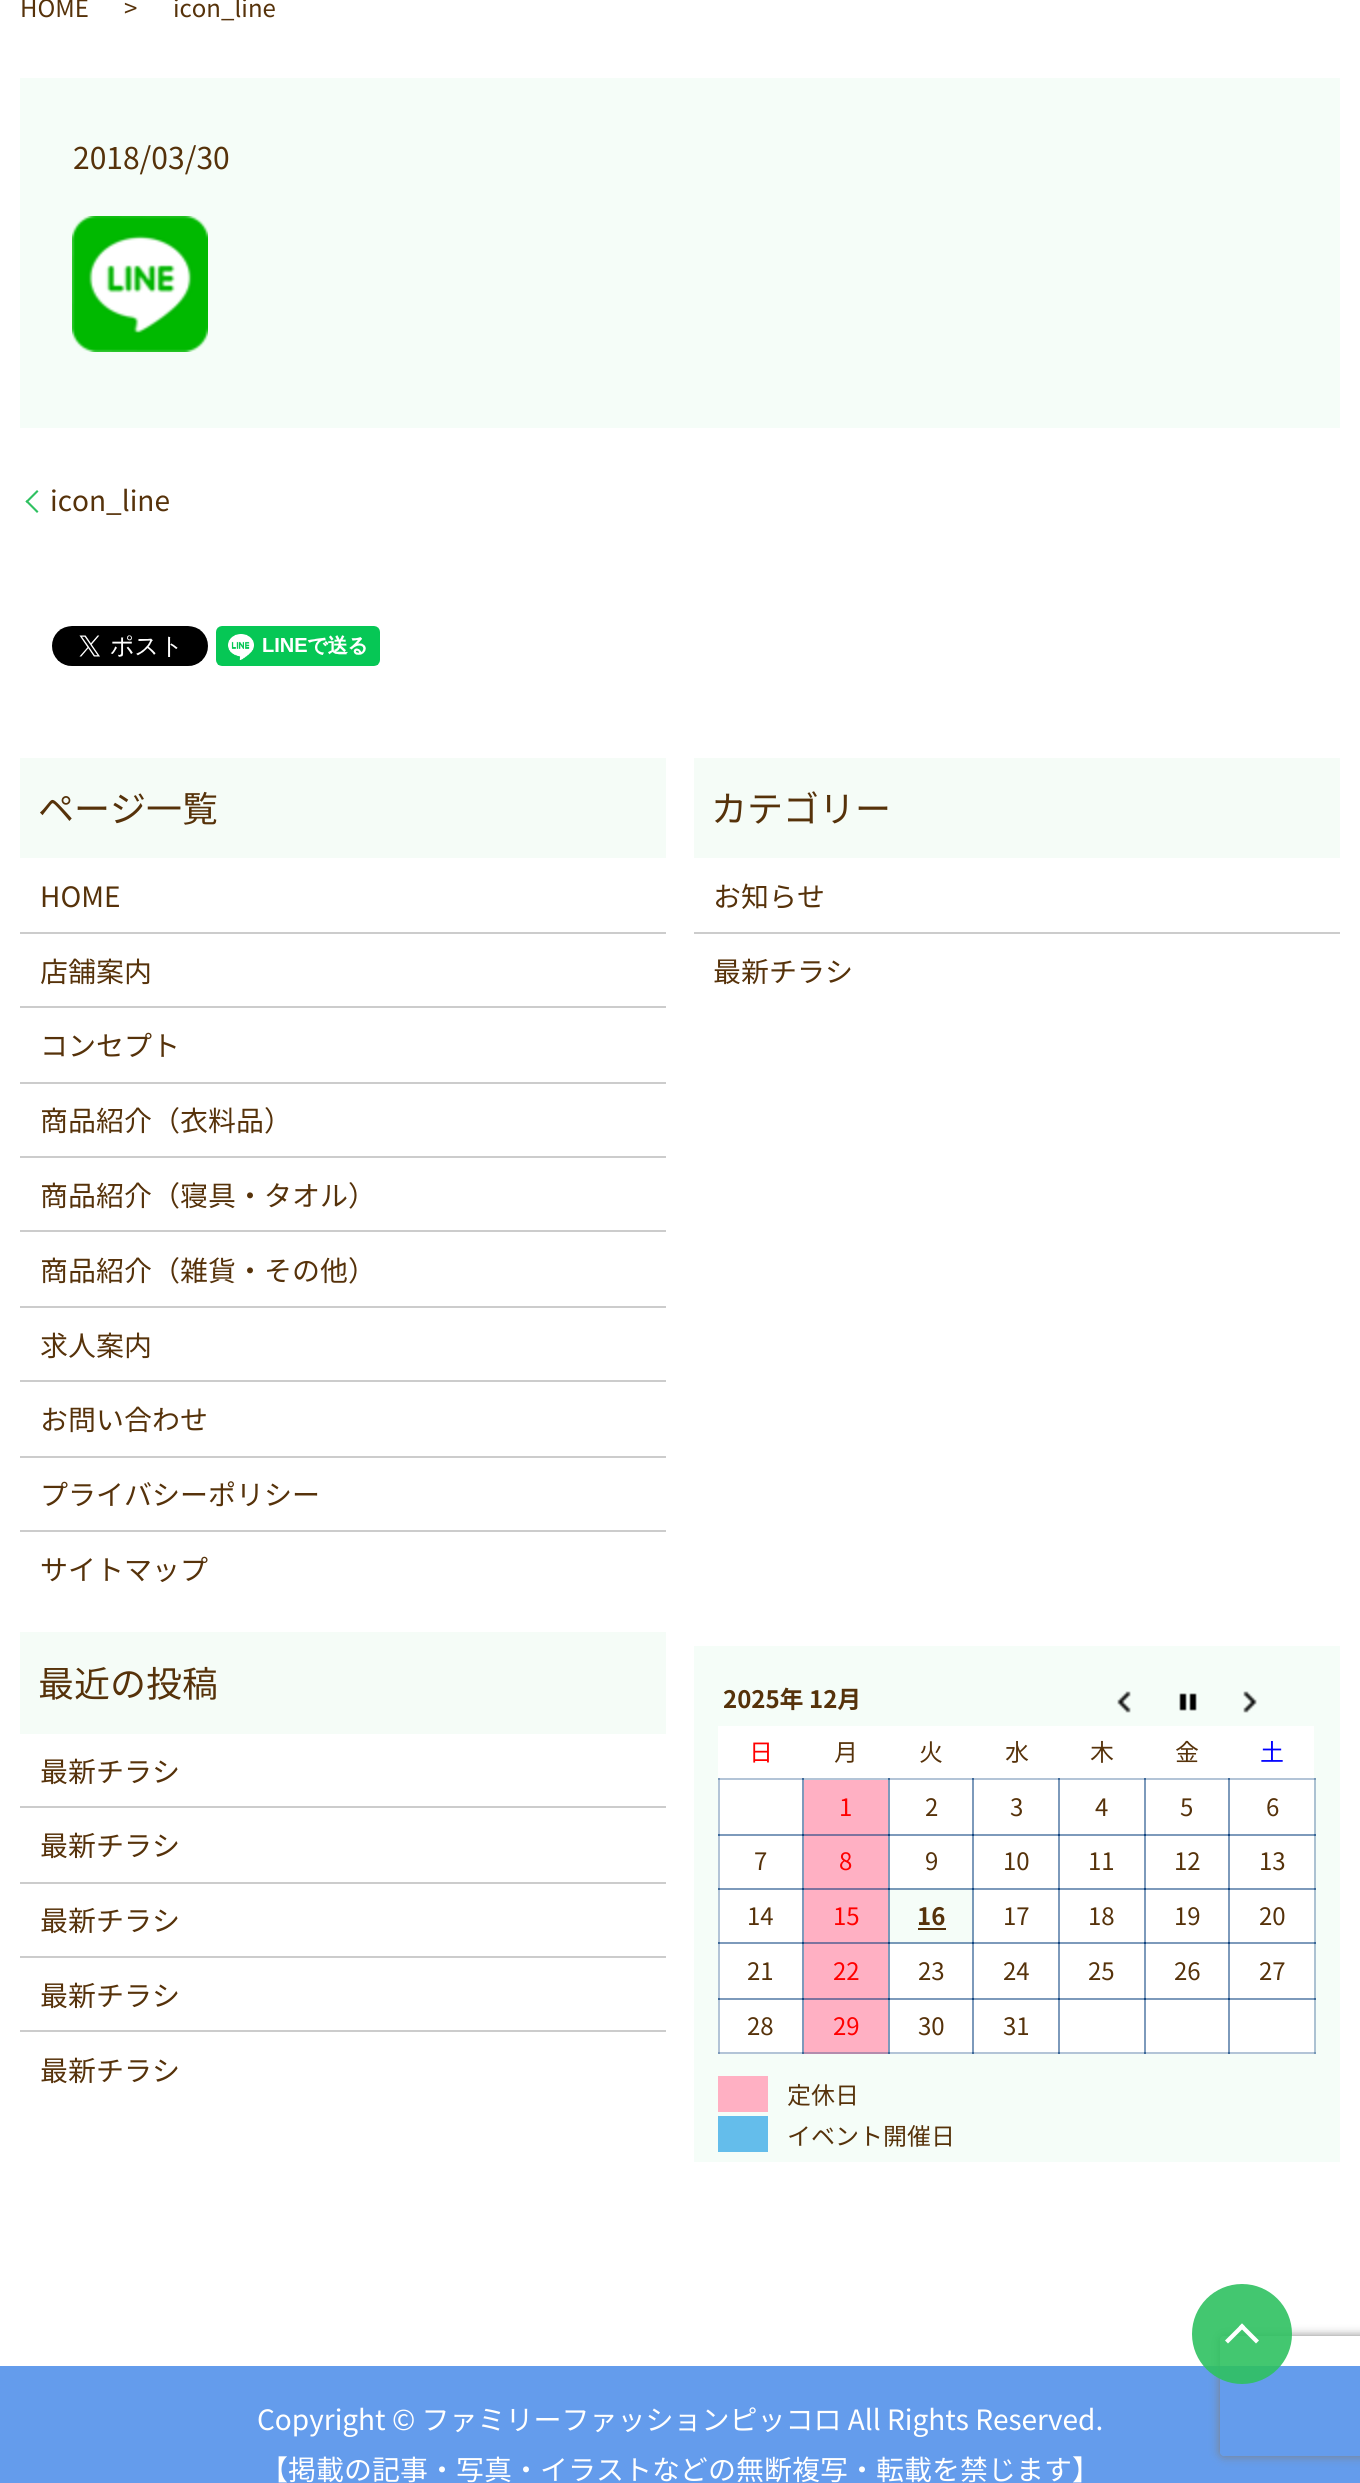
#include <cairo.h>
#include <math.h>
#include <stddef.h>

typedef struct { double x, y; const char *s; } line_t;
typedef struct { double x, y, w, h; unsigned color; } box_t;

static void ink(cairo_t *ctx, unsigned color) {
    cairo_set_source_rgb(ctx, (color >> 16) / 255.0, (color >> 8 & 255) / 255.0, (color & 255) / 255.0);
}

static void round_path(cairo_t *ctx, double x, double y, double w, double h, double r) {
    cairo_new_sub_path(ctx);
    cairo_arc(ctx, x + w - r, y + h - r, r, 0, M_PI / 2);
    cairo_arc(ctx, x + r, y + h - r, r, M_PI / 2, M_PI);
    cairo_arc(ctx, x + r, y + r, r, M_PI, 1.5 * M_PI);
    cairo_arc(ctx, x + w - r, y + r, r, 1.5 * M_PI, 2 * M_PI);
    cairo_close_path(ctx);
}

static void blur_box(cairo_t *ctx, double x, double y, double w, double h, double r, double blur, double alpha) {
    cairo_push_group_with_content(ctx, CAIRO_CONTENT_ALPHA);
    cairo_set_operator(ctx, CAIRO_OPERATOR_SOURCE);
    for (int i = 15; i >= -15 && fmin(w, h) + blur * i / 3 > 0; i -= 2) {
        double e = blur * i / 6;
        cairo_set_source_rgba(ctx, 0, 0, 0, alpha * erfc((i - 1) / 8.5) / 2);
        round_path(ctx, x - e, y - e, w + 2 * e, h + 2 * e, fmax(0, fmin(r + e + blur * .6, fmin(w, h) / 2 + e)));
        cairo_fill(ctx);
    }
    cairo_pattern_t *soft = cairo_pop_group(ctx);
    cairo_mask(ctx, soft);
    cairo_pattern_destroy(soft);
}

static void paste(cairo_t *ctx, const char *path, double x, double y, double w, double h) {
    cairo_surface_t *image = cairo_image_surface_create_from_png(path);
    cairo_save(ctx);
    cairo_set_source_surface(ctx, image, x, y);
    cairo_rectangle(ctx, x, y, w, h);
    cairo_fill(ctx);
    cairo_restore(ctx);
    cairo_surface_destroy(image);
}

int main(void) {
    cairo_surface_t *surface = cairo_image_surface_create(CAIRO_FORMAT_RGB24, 1360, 2483);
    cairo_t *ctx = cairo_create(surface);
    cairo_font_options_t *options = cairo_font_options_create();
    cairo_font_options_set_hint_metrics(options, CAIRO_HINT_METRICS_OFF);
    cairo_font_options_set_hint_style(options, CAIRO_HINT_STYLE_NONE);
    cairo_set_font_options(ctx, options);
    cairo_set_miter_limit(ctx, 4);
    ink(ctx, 0xFFFFFF);
    cairo_paint(ctx);
    cairo_select_font_face(ctx, "Noto Sans JP", CAIRO_FONT_SLANT_NORMAL, CAIRO_FONT_WEIGHT_NORMAL);
    cairo_set_font_size(ctx, 24);
    ink(ctx, 0x56320A);
    {
        static const line_t items[] = {
            {20, 17, "HOME"},
            {124, 17, ">"},
            {173, 17, "icon_line"},
        };
        for (size_t i = 0; i < sizeof items / sizeof *items; i++) {
            cairo_move_to(ctx, items[i].x, items[i].y);
            cairo_show_text(ctx, items[i].s);
        }
    }
    ink(ctx, 0xF5FDF8);
    cairo_rectangle(ctx, 20, 78, 1320, 350);
    cairo_fill(ctx);
    cairo_set_font_size(ctx, 30);
    ink(ctx, 0x56320A);
    cairo_move_to(ctx, 73, 169);
    cairo_show_text(ctx, "2018/03/30");
    paste(ctx, "media/1.png", 72, 216, 136, 136);
    ink(ctx, 0x2FC161);
    cairo_new_path(ctx);
    cairo_move_to(ctx, 25.5, 501.5);
    cairo_line_to(ctx, 37, 490);
    cairo_line_to(ctx, 38.5, 491.5);
    cairo_line_to(ctx, 27, 503);
    cairo_close_path(ctx);
    cairo_fill(ctx);
    cairo_set_font_size(ctx, 28);
    ink(ctx, 0x56320A);
    cairo_move_to(ctx, 50, 511);
    cairo_show_text(ctx, "icon_line");
    ink(ctx, 0x2FC161);
    cairo_new_path(ctx);
    cairo_move_to(ctx, 37, 513);
    cairo_line_to(ctx, 25.5, 501.5);
    cairo_line_to(ctx, 27, 500);
    cairo_line_to(ctx, 38.5, 511.5);
    cairo_close_path(ctx);
    cairo_fill(ctx);
    paste(ctx, "media/2.png", 52, 626, 156, 40);
    paste(ctx, "media/3.png", 216, 626, 164, 40);
    ink(ctx, 0xF5FCF7);
    cairo_rectangle(ctx, 20, 758, 646, 100);
    cairo_fill(ctx);
    cairo_set_font_size(ctx, 36);
    ink(ctx, 0x56320A);
    cairo_move_to(ctx, 38, 822);
    cairo_show_text(ctx, "ページ一覧");
    ink(ctx, 0xCCCCCC);
    cairo_rectangle(ctx, 20, 932, 646, 2);
    cairo_fill(ctx);
    cairo_set_font_size(ctx, 28);
    ink(ctx, 0x56320A);
    cairo_move_to(ctx, 40, 907);
    cairo_show_text(ctx, "HOME");
    ink(ctx, 0xCCCCCC);
    cairo_rectangle(ctx, 20, 1006, 646, 2);
    cairo_fill(ctx);
    ink(ctx, 0x56320A);
    cairo_move_to(ctx, 40, 982);
    cairo_show_text(ctx, "店舗案内");
    ink(ctx, 0xCCCCCC);
    cairo_rectangle(ctx, 20, 1082, 646, 2);
    cairo_fill(ctx);
    ink(ctx, 0x56320A);
    cairo_move_to(ctx, 40, 1056);
    cairo_show_text(ctx, "コンセプト");
    ink(ctx, 0xCCCCCC);
    cairo_rectangle(ctx, 20, 1156, 646, 2);
    cairo_fill(ctx);
    ink(ctx, 0x56320A);
    cairo_move_to(ctx, 40, 1131);
    cairo_show_text(ctx, "商品紹介（衣料品）");
    ink(ctx, 0xCCCCCC);
    cairo_rectangle(ctx, 20, 1230, 646, 2);
    cairo_fill(ctx);
    ink(ctx, 0x56320A);
    cairo_move_to(ctx, 40, 1206);
    cairo_show_text(ctx, "商品紹介（寝具・タオル）");
    ink(ctx, 0xCCCCCC);
    cairo_rectangle(ctx, 20, 1306, 646, 2);
    cairo_fill(ctx);
    ink(ctx, 0x56320A);
    cairo_move_to(ctx, 40, 1281);
    cairo_show_text(ctx, "商品紹介（雑貨・その他）");
    ink(ctx, 0xCCCCCC);
    cairo_rectangle(ctx, 20, 1380, 646, 2);
    cairo_fill(ctx);
    ink(ctx, 0x56320A);
    cairo_move_to(ctx, 40, 1356);
    cairo_show_text(ctx, "求人案内");
    ink(ctx, 0xCCCCCC);
    cairo_rectangle(ctx, 20, 1456, 646, 2);
    cairo_fill(ctx);
    ink(ctx, 0x56320A);
    cairo_move_to(ctx, 40, 1430);
    cairo_show_text(ctx, "お問い合わせ");
    ink(ctx, 0xCCCCCC);
    cairo_rectangle(ctx, 20, 1530, 646, 2);
    cairo_fill(ctx);
    ink(ctx, 0x56320A);
    cairo_move_to(ctx, 40, 1505);
    cairo_show_text(ctx, "プライバシーポリシー");
    cairo_move_to(ctx, 40, 1580);
    cairo_show_text(ctx, "サイトマップ");
    ink(ctx, 0xF5FCF7);
    cairo_rectangle(ctx, 694, 758, 646, 100);
    cairo_fill(ctx);
    cairo_set_font_size(ctx, 36);
    ink(ctx, 0x56320A);
    cairo_move_to(ctx, 711, 822);
    cairo_show_text(ctx, "カテゴリー");
    ink(ctx, 0xCCCCCC);
    cairo_rectangle(ctx, 694, 932, 646, 2);
    cairo_fill(ctx);
    cairo_set_font_size(ctx, 28);
    ink(ctx, 0x56320A);
    cairo_move_to(ctx, 713, 907);
    cairo_show_text(ctx, "お知らせ");
    cairo_move_to(ctx, 713, 982);
    cairo_show_text(ctx, "最新チラシ");
    ink(ctx, 0xF5FCF7);
    cairo_rectangle(ctx, 20, 1632, 646, 102);
    cairo_fill(ctx);
    cairo_set_font_size(ctx, 36);
    ink(ctx, 0x56320A);
    cairo_move_to(ctx, 38, 1697);
    cairo_show_text(ctx, "最近の投稿");
    ink(ctx, 0xCCCCCC);
    cairo_rectangle(ctx, 20, 1806, 646, 2);
    cairo_fill(ctx);
    cairo_set_font_size(ctx, 28);
    ink(ctx, 0x56320A);
    cairo_move_to(ctx, 40, 1782);
    cairo_show_text(ctx, "最新チラシ");
    ink(ctx, 0xCCCCCC);
    cairo_rectangle(ctx, 20, 1882, 646, 2);
    cairo_fill(ctx);
    ink(ctx, 0x56320A);
    cairo_move_to(ctx, 40, 1856);
    cairo_show_text(ctx, "最新チラシ");
    ink(ctx, 0xCCCCCC);
    cairo_rectangle(ctx, 20, 1956, 646, 2);
    cairo_fill(ctx);
    ink(ctx, 0x56320A);
    cairo_move_to(ctx, 40, 1931);
    cairo_show_text(ctx, "最新チラシ");
    ink(ctx, 0xCCCCCC);
    cairo_rectangle(ctx, 20, 2030, 646, 2);
    cairo_fill(ctx);
    ink(ctx, 0x56320A);
    cairo_move_to(ctx, 40, 2006);
    cairo_show_text(ctx, "最新チラシ");
    cairo_move_to(ctx, 40, 2081);
    cairo_show_text(ctx, "最新チラシ");
    {
        static const box_t items[] = {
            {694, 1646, 646, 516, 0xF5FDF8},
            {1314, 1778, 2, 276, 0xACC2D2},
            {1314, 1778, 2, 2, 0x7899B8},
            {1314, 1834, 2, 2, 0x3B6898},
            {888, 1888, 2, 56, 0x7899B8},
            {888, 1888, 86, 2, 0x7899B8},
            {888, 1888, 2, 2, 0x0E4482},
            {972, 1888, 2, 56, 0x7899B8},
            {972, 1888, 2, 2, 0x0E4482},
            {1314, 1888, 2, 2, 0x3B6898},
            {888, 1942, 86, 2, 0x7899B8},
            {888, 1942, 2, 2, 0x0E4482},
            {972, 1942, 2, 2, 0x0E4482},
            {1314, 1942, 2, 2, 0x3B6898},
            {1314, 2052, 2, 2, 0x7899B8},
            {1314, 1998, 2, 2, 0x3B6898},
        };
        for (size_t i = 0; i < sizeof items / sizeof *items; i++) {
            ink(ctx, items[i].color);
            cairo_rectangle(ctx, items[i].x, items[i].y, items[i].w, items[i].h);
            cairo_fill(ctx);
        }
    }
    cairo_select_font_face(ctx, "Noto Sans JP", CAIRO_FONT_SLANT_NORMAL, CAIRO_FONT_WEIGHT_BOLD);
    cairo_set_font_size(ctx, 24);
    ink(ctx, 0x56320A);
    cairo_move_to(ctx, 723, 1708);
    cairo_show_text(ctx, "2025年 12月");
    paste(ctx, "media/4.png", 1117, 1691, 14, 22);
    paste(ctx, "media/5.png", 1179, 1693, 18, 18);
    paste(ctx, "media/6.png", 1243, 1691, 14, 22);
    {
        static const box_t items[] = {
            {718, 1726, 596, 52, 0xFFFFFF},
            {718, 1778, 596, 2, 0xB3C4D7},
            {718, 1778, 2, 2, 0x7D9ABB},
            {802, 1778, 2, 2, 0x3E699A},
        };
        for (size_t i = 0; i < sizeof items / sizeof *items; i++) {
            ink(ctx, items[i].color);
            cairo_rectangle(ctx, items[i].x, items[i].y, items[i].w, items[i].h);
            cairo_fill(ctx);
        }
    }
    cairo_select_font_face(ctx, "Noto Sans JP", CAIRO_FONT_SLANT_NORMAL, CAIRO_FONT_WEIGHT_NORMAL);
    ink(ctx, 0xFF0000);
    cairo_move_to(ctx, 749, 1761);
    cairo_show_text(ctx, "日");
    ink(ctx, 0x56320A);
    cairo_move_to(ctx, 834, 1761);
    cairo_show_text(ctx, "月");
    ink(ctx, 0x3E699A);
    cairo_rectangle(ctx, 888, 1778, 2, 2);
    cairo_fill(ctx);
    cairo_rectangle(ctx, 972, 1778, 2, 2);
    cairo_fill(ctx);
    ink(ctx, 0x56320A);
    cairo_move_to(ctx, 919, 1761);
    cairo_show_text(ctx, "火");
    ink(ctx, 0x3E699A);
    cairo_rectangle(ctx, 1058, 1778, 2, 2);
    cairo_fill(ctx);
    ink(ctx, 0x56320A);
    cairo_move_to(ctx, 1005, 1761);
    cairo_show_text(ctx, "水");
    cairo_move_to(ctx, 1090, 1761);
    cairo_show_text(ctx, "木");
    ink(ctx, 0x3E699A);
    cairo_rectangle(ctx, 1144, 1778, 2, 2);
    cairo_fill(ctx);
    cairo_rectangle(ctx, 1228, 1778, 2, 2);
    cairo_fill(ctx);
    ink(ctx, 0x56320A);
    cairo_move_to(ctx, 1175, 1761);
    cairo_show_text(ctx, "金");
    ink(ctx, 0x0000FF);
    cairo_move_to(ctx, 1260, 1761);
    cairo_show_text(ctx, "土");
    {
        static const box_t items[] = {
            {720, 1780, 82, 54, 0xFFFFFF},
            {718, 1780, 2, 274, 0xB3C4D7},
            {802, 1780, 2, 54, 0x7D9ABB},
            {804, 1780, 84, 54, 0xFFB0C3},
        };
        for (size_t i = 0; i < sizeof items / sizeof *items; i++) {
            ink(ctx, items[i].color);
            cairo_rectangle(ctx, items[i].x, items[i].y, items[i].w, items[i].h);
            cairo_fill(ctx);
        }
    }
    ink(ctx, 0xFF0000);
    cairo_move_to(ctx, 839, 1816);
    cairo_show_text(ctx, "1");
    {
        static const box_t items[] = {
            {890, 1780, 82, 54, 0xFFFFFF},
            {888, 1780, 2, 108, 0x7D9ABB},
            {972, 1780, 2, 54, 0x7D9ABB},
        };
        for (size_t i = 0; i < sizeof items / sizeof *items; i++) {
            ink(ctx, items[i].color);
            cairo_rectangle(ctx, items[i].x, items[i].y, items[i].w, items[i].h);
            cairo_fill(ctx);
        }
    }
    ink(ctx, 0x56320A);
    cairo_move_to(ctx, 925, 1816);
    cairo_show_text(ctx, "2");
    ink(ctx, 0xFFFFFF);
    cairo_rectangle(ctx, 974, 1780, 84, 54);
    cairo_fill(ctx);
    ink(ctx, 0x7D9ABB);
    cairo_rectangle(ctx, 1058, 1780, 2, 54);
    cairo_fill(ctx);
    ink(ctx, 0x56320A);
    cairo_move_to(ctx, 1010, 1816);
    cairo_show_text(ctx, "3");
    ink(ctx, 0xFFFFFF);
    cairo_rectangle(ctx, 1060, 1780, 84, 54);
    cairo_fill(ctx);
    ink(ctx, 0x56320A);
    cairo_move_to(ctx, 1095, 1816);
    cairo_show_text(ctx, "4");
    {
        static const box_t items[] = {
            {1146, 1780, 82, 54, 0xFFFFFF},
            {1144, 1780, 2, 274, 0x7D9ABB},
            {1228, 1780, 2, 54, 0x7D9ABB},
        };
        for (size_t i = 0; i < sizeof items / sizeof *items; i++) {
            ink(ctx, items[i].color);
            cairo_rectangle(ctx, items[i].x, items[i].y, items[i].w, items[i].h);
            cairo_fill(ctx);
        }
    }
    ink(ctx, 0x56320A);
    cairo_move_to(ctx, 1180, 1816);
    cairo_show_text(ctx, "5");
    ink(ctx, 0xFFFFFF);
    cairo_rectangle(ctx, 1230, 1780, 84, 54);
    cairo_fill(ctx);
    ink(ctx, 0x56320A);
    cairo_move_to(ctx, 1266, 1816);
    cairo_show_text(ctx, "6");
    {
        static const box_t items[] = {
            {720, 1836, 82, 52, 0xFFFFFF},
            {718, 1834, 86, 2, 0x7D9ABB},
            {718, 1834, 2, 2, 0x3E699A},
            {802, 1834, 2, 54, 0x7D9ABB},
            {802, 1834, 2, 2, 0x0F4582},
        };
        for (size_t i = 0; i < sizeof items / sizeof *items; i++) {
            ink(ctx, items[i].color);
            cairo_rectangle(ctx, items[i].x, items[i].y, items[i].w, items[i].h);
            cairo_fill(ctx);
        }
    }
    ink(ctx, 0x56320A);
    cairo_move_to(ctx, 754, 1870);
    cairo_show_text(ctx, "7");
    ink(ctx, 0xFFB0C3);
    cairo_rectangle(ctx, 804, 1836, 84, 52);
    cairo_fill(ctx);
    ink(ctx, 0x7D739E);
    cairo_rectangle(ctx, 804, 1834, 84, 2);
    cairo_fill(ctx);
    ink(ctx, 0xFF0000);
    cairo_move_to(ctx, 839, 1870);
    cairo_show_text(ctx, "8");
    {
        static const box_t items[] = {
            {890, 1836, 82, 52, 0xFFFFFF},
            {888, 1834, 426, 2, 0x7D9ABB},
            {888, 1834, 2, 2, 0x0F4582},
            {972, 1834, 2, 54, 0x7D9ABB},
            {972, 1834, 2, 2, 0x0F4582},
        };
        for (size_t i = 0; i < sizeof items / sizeof *items; i++) {
            ink(ctx, items[i].color);
            cairo_rectangle(ctx, items[i].x, items[i].y, items[i].w, items[i].h);
            cairo_fill(ctx);
        }
    }
    ink(ctx, 0x56320A);
    cairo_move_to(ctx, 925, 1870);
    cairo_show_text(ctx, "9");
    {
        static const box_t items[] = {
            {974, 1836, 84, 52, 0xFFFFFF},
            {1058, 1834, 2, 54, 0x7D9ABB},
            {1058, 1834, 2, 2, 0x0F4582},
        };
        for (size_t i = 0; i < sizeof items / sizeof *items; i++) {
            ink(ctx, items[i].color);
            cairo_rectangle(ctx, items[i].x, items[i].y, items[i].w, items[i].h);
            cairo_fill(ctx);
        }
    }
    ink(ctx, 0x56320A);
    cairo_move_to(ctx, 1003, 1870);
    cairo_show_text(ctx, "10");
    ink(ctx, 0xFFFFFF);
    cairo_rectangle(ctx, 1060, 1836, 84, 52);
    cairo_fill(ctx);
    ink(ctx, 0x56320A);
    cairo_move_to(ctx, 1088, 1870);
    cairo_show_text(ctx, "11");
    {
        static const box_t items[] = {
            {1146, 1836, 82, 52, 0xFFFFFF},
            {1144, 1834, 2, 2, 0x0F4582},
            {1228, 1834, 2, 54, 0x7D9ABB},
            {1228, 1834, 2, 2, 0x0F4582},
        };
        for (size_t i = 0; i < sizeof items / sizeof *items; i++) {
            ink(ctx, items[i].color);
            cairo_rectangle(ctx, items[i].x, items[i].y, items[i].w, items[i].h);
            cairo_fill(ctx);
        }
    }
    ink(ctx, 0x56320A);
    cairo_move_to(ctx, 1174, 1870);
    cairo_show_text(ctx, "12");
    ink(ctx, 0xFFFFFF);
    cairo_rectangle(ctx, 1230, 1836, 84, 52);
    cairo_fill(ctx);
    ink(ctx, 0x56320A);
    cairo_move_to(ctx, 1259, 1870);
    cairo_show_text(ctx, "13");
    {
        static const box_t items[] = {
            {720, 1890, 82, 52, 0xFFFFFF},
            {718, 1888, 86, 2, 0x7D9ABB},
            {718, 1888, 2, 2, 0x3E699A},
            {802, 1888, 2, 110, 0x7D9ABB},
            {802, 1888, 2, 2, 0x0F4582},
            {718, 1942, 86, 2, 0x7D9ABB},
            {718, 1942, 2, 2, 0x3E699A},
            {802, 1942, 2, 2, 0x0F4582},
        };
        for (size_t i = 0; i < sizeof items / sizeof *items; i++) {
            ink(ctx, items[i].color);
            cairo_rectangle(ctx, items[i].x, items[i].y, items[i].w, items[i].h);
            cairo_fill(ctx);
        }
    }
    ink(ctx, 0x56320A);
    cairo_move_to(ctx, 747, 1925);
    cairo_show_text(ctx, "14");
    {
        static const box_t items[] = {
            {804, 1890, 84, 52, 0xFFB0C3},
            {804, 1888, 84, 2, 0x7D739E},
            {804, 1942, 84, 2, 0x7D739E},
        };
        for (size_t i = 0; i < sizeof items / sizeof *items; i++) {
            ink(ctx, items[i].color);
            cairo_rectangle(ctx, items[i].x, items[i].y, items[i].w, items[i].h);
            cairo_fill(ctx);
        }
    }
    ink(ctx, 0xFF0000);
    cairo_move_to(ctx, 833, 1925);
    cairo_show_text(ctx, "15");
    cairo_select_font_face(ctx, "Noto Sans JP", CAIRO_FONT_SLANT_NORMAL, CAIRO_FONT_WEIGHT_BOLD);
    ink(ctx, 0x56320A);
    cairo_move_to(ctx, 917, 1925);
    cairo_show_text(ctx, "16");
    {
        static const box_t items[] = {
            {918, 1928, 28, 2, 0x56320A},
            {974, 1890, 84, 52, 0xFFFFFF},
            {974, 1888, 340, 2, 0x7D9ABB},
            {1058, 1888, 2, 110, 0x7D9ABB},
            {1058, 1888, 2, 2, 0x0F4582},
            {974, 1942, 170, 2, 0x7D9ABB},
            {1058, 1942, 2, 2, 0x0F4582},
        };
        for (size_t i = 0; i < sizeof items / sizeof *items; i++) {
            ink(ctx, items[i].color);
            cairo_rectangle(ctx, items[i].x, items[i].y, items[i].w, items[i].h);
            cairo_fill(ctx);
        }
    }
    cairo_select_font_face(ctx, "Noto Sans JP", CAIRO_FONT_SLANT_NORMAL, CAIRO_FONT_WEIGHT_NORMAL);
    ink(ctx, 0x56320A);
    cairo_move_to(ctx, 1003, 1925);
    cairo_show_text(ctx, "17");
    ink(ctx, 0xFFFFFF);
    cairo_rectangle(ctx, 1060, 1890, 84, 52);
    cairo_fill(ctx);
    ink(ctx, 0x56320A);
    cairo_move_to(ctx, 1088, 1925);
    cairo_show_text(ctx, "18");
    {
        static const box_t items[] = {
            {1146, 1890, 82, 52, 0xFFFFFF},
            {1144, 1888, 2, 2, 0x0F4582},
            {1228, 1888, 2, 110, 0x7D9ABB},
            {1228, 1888, 2, 2, 0x0F4582},
            {1144, 1942, 170, 2, 0x7D9ABB},
            {1144, 1942, 2, 2, 0x0F4582},
            {1228, 1942, 2, 2, 0x0F4582},
        };
        for (size_t i = 0; i < sizeof items / sizeof *items; i++) {
            ink(ctx, items[i].color);
            cairo_rectangle(ctx, items[i].x, items[i].y, items[i].w, items[i].h);
            cairo_fill(ctx);
        }
    }
    ink(ctx, 0x56320A);
    cairo_move_to(ctx, 1174, 1925);
    cairo_show_text(ctx, "19");
    ink(ctx, 0xFFFFFF);
    cairo_rectangle(ctx, 1230, 1890, 84, 52);
    cairo_fill(ctx);
    ink(ctx, 0x56320A);
    cairo_move_to(ctx, 1259, 1925);
    cairo_show_text(ctx, "20");
    ink(ctx, 0xFFFFFF);
    cairo_rectangle(ctx, 720, 1944, 82, 54);
    cairo_fill(ctx);
    ink(ctx, 0x56320A);
    cairo_move_to(ctx, 747, 1980);
    cairo_show_text(ctx, "21");
    ink(ctx, 0xFFB0C3);
    cairo_rectangle(ctx, 804, 1944, 84, 54);
    cairo_fill(ctx);
    ink(ctx, 0xFF0000);
    cairo_move_to(ctx, 833, 1980);
    cairo_show_text(ctx, "22");
    {
        static const box_t items[] = {
            {890, 1944, 82, 54, 0xFFFFFF},
            {888, 1944, 2, 110, 0x7D9ABB},
            {972, 1944, 2, 54, 0x7D9ABB},
        };
        for (size_t i = 0; i < sizeof items / sizeof *items; i++) {
            ink(ctx, items[i].color);
            cairo_rectangle(ctx, items[i].x, items[i].y, items[i].w, items[i].h);
            cairo_fill(ctx);
        }
    }
    ink(ctx, 0x56320A);
    cairo_move_to(ctx, 918, 1980);
    cairo_show_text(ctx, "23");
    ink(ctx, 0xFFFFFF);
    cairo_rectangle(ctx, 974, 1944, 84, 54);
    cairo_fill(ctx);
    ink(ctx, 0x56320A);
    cairo_move_to(ctx, 1003, 1980);
    cairo_show_text(ctx, "24");
    ink(ctx, 0xFFFFFF);
    cairo_rectangle(ctx, 1060, 1944, 84, 54);
    cairo_fill(ctx);
    ink(ctx, 0x56320A);
    cairo_move_to(ctx, 1088, 1980);
    cairo_show_text(ctx, "25");
    ink(ctx, 0xFFFFFF);
    cairo_rectangle(ctx, 1146, 1944, 82, 54);
    cairo_fill(ctx);
    ink(ctx, 0x56320A);
    cairo_move_to(ctx, 1174, 1980);
    cairo_show_text(ctx, "26");
    ink(ctx, 0xFFFFFF);
    cairo_rectangle(ctx, 1230, 1944, 84, 54);
    cairo_fill(ctx);
    ink(ctx, 0x56320A);
    cairo_move_to(ctx, 1259, 1980);
    cairo_show_text(ctx, "27");
    {
        static const box_t items[] = {
            {720, 2000, 82, 52, 0xFFFFFF},
            {718, 2052, 86, 2, 0xB3C4D7},
            {718, 2052, 2, 2, 0x7D9ABB},
            {718, 1998, 86, 2, 0x7D9ABB},
            {718, 1998, 2, 2, 0x3E699A},
            {802, 1998, 2, 56, 0x7D9ABB},
            {802, 2052, 2, 2, 0x3E699A},
            {802, 1998, 2, 2, 0x0F4582},
        };
        for (size_t i = 0; i < sizeof items / sizeof *items; i++) {
            ink(ctx, items[i].color);
            cairo_rectangle(ctx, items[i].x, items[i].y, items[i].w, items[i].h);
            cairo_fill(ctx);
        }
    }
    ink(ctx, 0x56320A);
    cairo_move_to(ctx, 747, 2035);
    cairo_show_text(ctx, "28");
    {
        static const box_t items[] = {
            {804, 2000, 84, 52, 0xFFB0C3},
            {804, 2052, 84, 2, 0xB38CAD},
            {804, 1998, 84, 2, 0x7D739E},
        };
        for (size_t i = 0; i < sizeof items / sizeof *items; i++) {
            ink(ctx, items[i].color);
            cairo_rectangle(ctx, items[i].x, items[i].y, items[i].w, items[i].h);
            cairo_fill(ctx);
        }
    }
    ink(ctx, 0xFF0000);
    cairo_move_to(ctx, 833, 2035);
    cairo_show_text(ctx, "29");
    {
        static const box_t items[] = {
            {890, 2000, 82, 52, 0xFFFFFF},
            {888, 2052, 426, 2, 0xB3C4D7},
            {888, 2052, 2, 2, 0x3E699A},
            {888, 1998, 426, 2, 0x7D9ABB},
            {888, 1998, 2, 2, 0x0F4582},
            {972, 1998, 2, 56, 0x7D9ABB},
            {972, 2052, 2, 2, 0x3E699A},
            {972, 1998, 2, 2, 0x0F4582},
        };
        for (size_t i = 0; i < sizeof items / sizeof *items; i++) {
            ink(ctx, items[i].color);
            cairo_rectangle(ctx, items[i].x, items[i].y, items[i].w, items[i].h);
            cairo_fill(ctx);
        }
    }
    ink(ctx, 0x56320A);
    cairo_move_to(ctx, 918, 2035);
    cairo_show_text(ctx, "30");
    {
        static const box_t items[] = {
            {974, 2000, 84, 52, 0xFFFFFF},
            {1058, 1998, 2, 56, 0x7D9ABB},
            {1058, 2052, 2, 2, 0x3E699A},
            {1058, 1998, 2, 2, 0x0F4582},
        };
        for (size_t i = 0; i < sizeof items / sizeof *items; i++) {
            ink(ctx, items[i].color);
            cairo_rectangle(ctx, items[i].x, items[i].y, items[i].w, items[i].h);
            cairo_fill(ctx);
        }
    }
    ink(ctx, 0x56320A);
    cairo_move_to(ctx, 1003, 2035);
    cairo_show_text(ctx, "31");
    {
        static const box_t items[] = {
            {1060, 2000, 84, 52, 0xFFFFFF},
            {1146, 2000, 82, 52, 0xFFFFFF},
            {1144, 2052, 2, 2, 0x3E699A},
            {1144, 1998, 2, 2, 0x0F4582},
            {1228, 1998, 2, 56, 0x7D9ABB},
            {1228, 2052, 2, 2, 0x3E699A},
            {1228, 1998, 2, 2, 0x0F4582},
            {1230, 2000, 84, 52, 0xFFFFFF},
            {718, 2076, 50, 36, 0xFFB0C3},
        };
        for (size_t i = 0; i < sizeof items / sizeof *items; i++) {
            ink(ctx, items[i].color);
            cairo_rectangle(ctx, items[i].x, items[i].y, items[i].w, items[i].h);
            cairo_fill(ctx);
        }
    }
    ink(ctx, 0x56320A);
    cairo_move_to(ctx, 787, 2104);
    cairo_show_text(ctx, "定休日");
    ink(ctx, 0x64BDEB);
    cairo_rectangle(ctx, 718, 2116, 50, 36);
    cairo_fill(ctx);
    ink(ctx, 0x56320A);
    cairo_move_to(ctx, 787, 2145);
    cairo_show_text(ctx, "イベント開催日");
    ink(ctx, 0x649CEC);
    cairo_rectangle(ctx, 0, 2366, 1360, 117);
    cairo_fill(ctx);
    cairo_save(ctx);
    cairo_set_fill_rule(ctx, CAIRO_FILL_RULE_EVEN_ODD);
    cairo_new_path(ctx);
    cairo_move_to(ctx, 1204, 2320);
    cairo_line_to(ctx, 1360, 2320);
    cairo_line_to(ctx, 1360, 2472);
    cairo_line_to(ctx, 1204, 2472);
    cairo_close_path(ctx);
    cairo_move_to(ctx, 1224, 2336);
    cairo_line_to(ctx, 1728, 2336);
    cairo_curve_to(ctx, 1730, 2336, 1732, 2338, 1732, 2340);
    cairo_line_to(ctx, 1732, 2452);
    cairo_curve_to(ctx, 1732, 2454, 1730, 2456, 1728, 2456);
    cairo_line_to(ctx, 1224, 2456);
    cairo_curve_to(ctx, 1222, 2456, 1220, 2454, 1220, 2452);
    cairo_line_to(ctx, 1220, 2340);
    cairo_curve_to(ctx, 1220, 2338, 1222, 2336, 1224, 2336);
    cairo_close_path(ctx);
    cairo_clip(ctx);
    ink(ctx, 0x808080);
    blur_box(ctx, 1220, 2336, 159, 120, 4, 5, 1);
    cairo_restore(ctx);
    cairo_set_source_rgba(ctx, 0.184, 0.757, 0.38, 0.9);
    cairo_arc(ctx, 1242, 2334, 50, 0, 2 * M_PI);
    cairo_fill(ctx);
    ink(ctx, 0xFFFFFF);
    cairo_new_path(ctx);
    cairo_move_to(ctx, 1242, 2323.5);
    cairo_line_to(ctx, 1259, 2340.5);
    cairo_line_to(ctx, 1256, 2343.5);
    cairo_line_to(ctx, 1239, 2326.5);
    cairo_close_path(ctx);
    cairo_fill(ctx);
    cairo_new_path(ctx);
    cairo_move_to(ctx, 1242, 2323.5);
    cairo_line_to(ctx, 1245, 2326.5);
    cairo_line_to(ctx, 1228, 2343.5);
    cairo_line_to(ctx, 1225, 2340.5);
    cairo_close_path(ctx);
    cairo_fill(ctx);
    cairo_set_font_size(ctx, 28);
    cairo_move_to(ctx, 257, 2430);
    cairo_show_text(ctx, "Copyright © ファミリーファッションピッコロ All Rights Reserved.");
    cairo_move_to(ctx, 260, 2480);
    cairo_show_text(ctx, "【掲載の記事・写真・イラストなどの無断複写・転載を禁じます】");
    cairo_surface_write_to_png(surface, "image.png");
    cairo_font_options_destroy(options);
    cairo_destroy(ctx);
    cairo_surface_destroy(surface);
    return 0;
}
